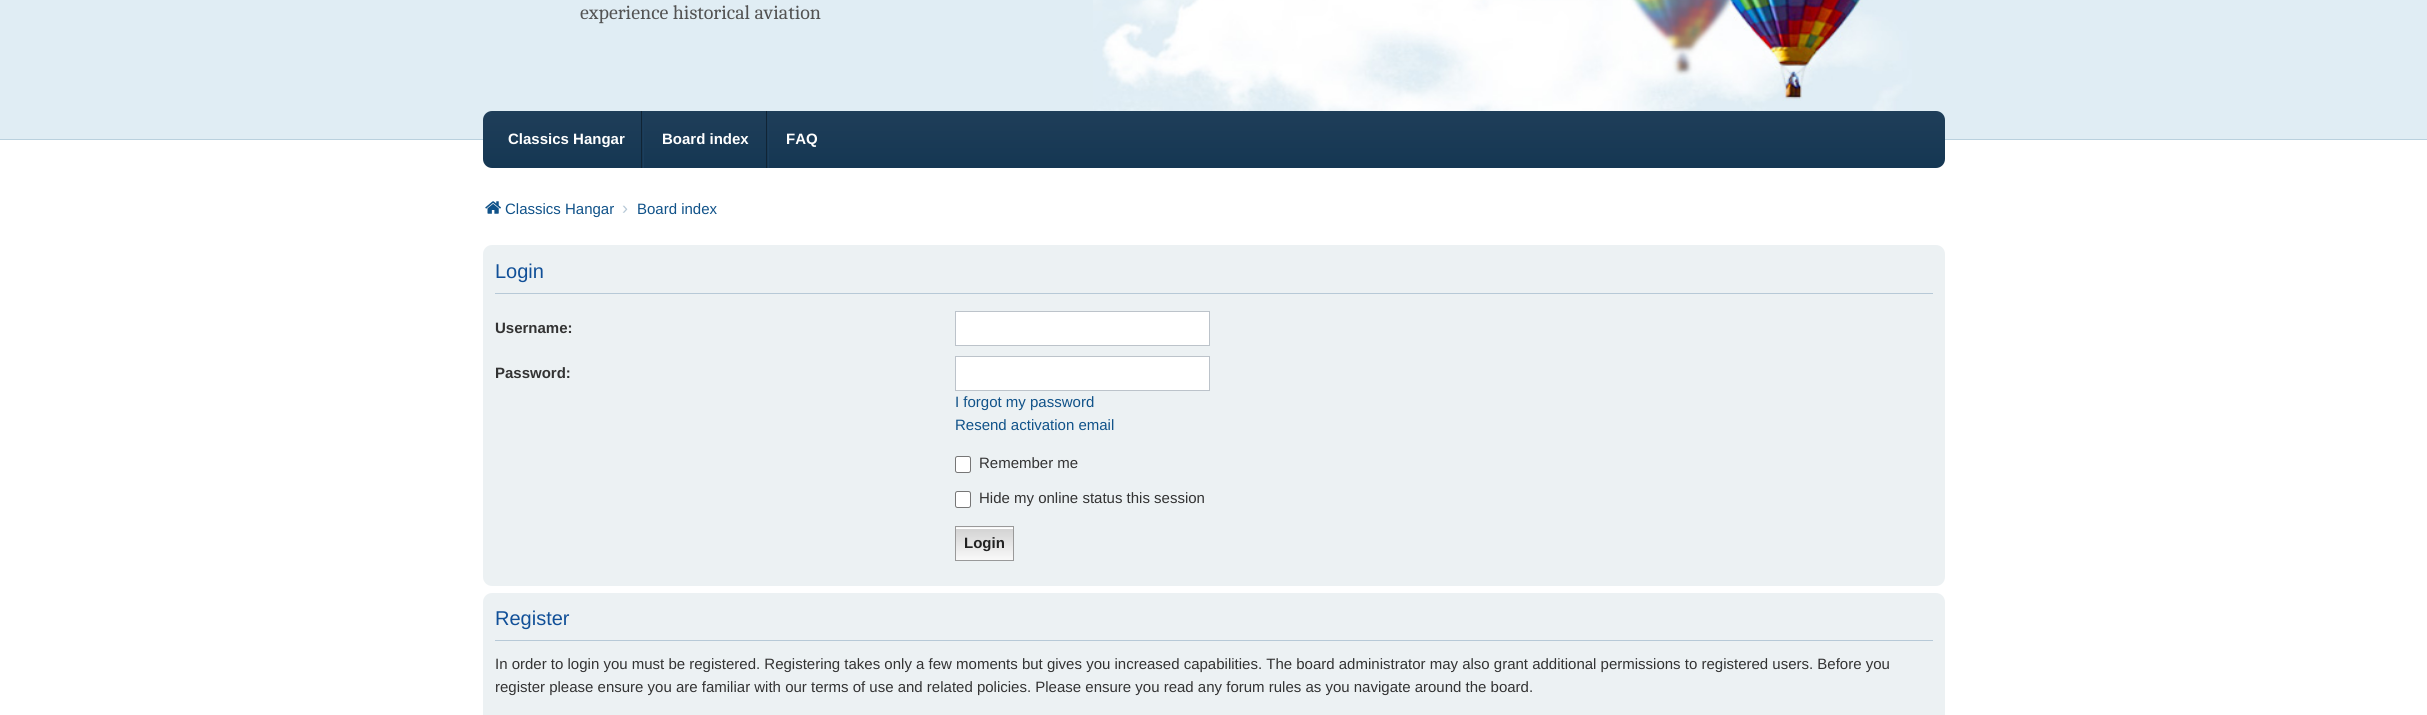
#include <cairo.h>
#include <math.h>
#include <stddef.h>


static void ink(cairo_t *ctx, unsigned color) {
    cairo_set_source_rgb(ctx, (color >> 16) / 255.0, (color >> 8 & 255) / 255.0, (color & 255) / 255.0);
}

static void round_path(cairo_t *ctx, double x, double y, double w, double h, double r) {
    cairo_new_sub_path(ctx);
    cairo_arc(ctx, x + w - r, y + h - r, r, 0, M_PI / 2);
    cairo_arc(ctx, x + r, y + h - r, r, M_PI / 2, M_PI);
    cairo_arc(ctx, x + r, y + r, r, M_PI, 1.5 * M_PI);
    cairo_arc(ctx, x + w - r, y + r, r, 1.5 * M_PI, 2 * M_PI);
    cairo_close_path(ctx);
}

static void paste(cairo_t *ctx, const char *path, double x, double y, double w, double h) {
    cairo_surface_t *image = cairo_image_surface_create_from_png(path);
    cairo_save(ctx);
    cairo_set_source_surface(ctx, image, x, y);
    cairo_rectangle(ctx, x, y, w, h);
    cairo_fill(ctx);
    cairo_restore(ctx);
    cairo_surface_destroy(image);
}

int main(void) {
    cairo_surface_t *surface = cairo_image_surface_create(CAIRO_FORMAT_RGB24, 2427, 715);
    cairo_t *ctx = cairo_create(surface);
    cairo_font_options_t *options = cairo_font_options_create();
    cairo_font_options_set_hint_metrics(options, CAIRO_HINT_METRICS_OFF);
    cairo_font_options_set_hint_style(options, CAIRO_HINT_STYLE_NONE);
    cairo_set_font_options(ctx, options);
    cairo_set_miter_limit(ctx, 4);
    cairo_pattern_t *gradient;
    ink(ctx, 0xFFFFFF);
    cairo_paint(ctx);
    ink(ctx, 0xE0EDF4);
    cairo_rectangle(ctx, 0, 0, 2427, 139);
    cairo_fill(ctx);
    ink(ctx, 0xBAD1DE);
    cairo_rectangle(ctx, 0, 139, 2427, 1);
    cairo_fill(ctx);
    paste(ctx, "media/1.png", 1093, 0, 819, 111);
    cairo_select_font_face(ctx, "Caladea", CAIRO_FONT_SLANT_NORMAL, CAIRO_FONT_WEIGHT_NORMAL);
    cairo_set_font_size(ctx, 20);
    ink(ctx, 0x535353);
    cairo_move_to(ctx, 580, 19);
    cairo_show_text(ctx, "experience historical aviation");
    gradient = cairo_pattern_create_linear(1214, 111, 1214, 168);
    cairo_pattern_add_color_stop_rgba(gradient, 0, 0.122, 0.243, 0.349, 1);
    cairo_pattern_add_color_stop_rgba(gradient, 1, 0.082, 0.216, 0.325, 1);
    cairo_set_source(ctx, gradient);
    cairo_pattern_destroy(gradient);
    round_path(ctx, 483, 111, 1462, 57, 9);
    cairo_fill(ctx);
    ink(ctx, 0x102435);
    cairo_rectangle(ctx, 641, 111, 1, 57);
    cairo_fill(ctx);
    cairo_select_font_face(ctx, "Liberation Sans", CAIRO_FONT_SLANT_NORMAL, CAIRO_FONT_WEIGHT_BOLD);
    cairo_set_font_size(ctx, 15);
    ink(ctx, 0xFFFFFF);
    cairo_move_to(ctx, 508, 144);
    cairo_show_text(ctx, "Classics Hangar");
    ink(ctx, 0x102435);
    cairo_rectangle(ctx, 766, 111, 1, 57);
    cairo_fill(ctx);
    ink(ctx, 0x1C3E5C);
    cairo_rectangle(ctx, 643, 111, 1, 57);
    cairo_fill(ctx);
    ink(ctx, 0xFFFFFF);
    cairo_move_to(ctx, 662, 144);
    cairo_show_text(ctx, "Board index");
    ink(ctx, 0x1C3E5C);
    cairo_rectangle(ctx, 768, 111, 1, 57);
    cairo_fill(ctx);
    ink(ctx, 0xFFFFFF);
    cairo_move_to(ctx, 786, 144);
    cairo_show_text(ctx, "FAQ");
    paste(ctx, "media/2.png", 485, 201, 16, 13);
    cairo_select_font_face(ctx, "Liberation Sans", CAIRO_FONT_SLANT_NORMAL, CAIRO_FONT_WEIGHT_NORMAL);
    ink(ctx, 0x105289);
    cairo_move_to(ctx, 505, 214);
    cairo_show_text(ctx, "Classics Hangar");
    cairo_set_font_size(ctx, 18);
    ink(ctx, 0xB7C9D7);
    cairo_move_to(ctx, 622, 214);
    cairo_show_text(ctx, "›");
    cairo_set_font_size(ctx, 15);
    ink(ctx, 0x105289);
    cairo_move_to(ctx, 637, 214);
    cairo_show_text(ctx, "Board index");
    ink(ctx, 0xECF1F3);
    round_path(ctx, 483, 245, 1462, 341, 9);
    cairo_fill(ctx);
    ink(ctx, 0xB7C9D7);
    cairo_rectangle(ctx, 495, 293, 1438, 1);
    cairo_fill(ctx);
    cairo_set_font_size(ctx, 20);
    ink(ctx, 0x115098);
    cairo_move_to(ctx, 495, 278);
    cairo_show_text(ctx, "Login");
    cairo_select_font_face(ctx, "Liberation Sans", CAIRO_FONT_SLANT_NORMAL, CAIRO_FONT_WEIGHT_BOLD);
    cairo_set_font_size(ctx, 15);
    ink(ctx, 0x333333);
    cairo_move_to(ctx, 495, 333);
    cairo_show_text(ctx, "Username:");
    ink(ctx, 0xFFFFFF);
    cairo_rectangle(ctx, 955.5, 311.5, 254, 34);
    cairo_fill_preserve(ctx);
    ink(ctx, 0xBCC3CA);
    cairo_set_line_width(ctx, 1);
    cairo_stroke(ctx);
    ink(ctx, 0x333333);
    cairo_move_to(ctx, 495, 378);
    cairo_show_text(ctx, "Password:");
    ink(ctx, 0xFFFFFF);
    cairo_rectangle(ctx, 955.5, 356.5, 254, 34);
    cairo_fill_preserve(ctx);
    ink(ctx, 0xBCC3CA);
    cairo_stroke(ctx);
    cairo_select_font_face(ctx, "Liberation Sans", CAIRO_FONT_SLANT_NORMAL, CAIRO_FONT_WEIGHT_NORMAL);
    ink(ctx, 0x105289);
    cairo_move_to(ctx, 955, 407);
    cairo_show_text(ctx, "I forgot my password");
    cairo_move_to(ctx, 955, 430);
    cairo_show_text(ctx, "Resend activation email");
    ink(ctx, 0xFFFFFF);
    round_path(ctx, 955.5, 456.5, 15, 16, 2);
    cairo_fill_preserve(ctx);
    ink(ctx, 0x767676);
    cairo_stroke(ctx);
    ink(ctx, 0x333333);
    cairo_move_to(ctx, 979, 468);
    cairo_show_text(ctx, "Remember me");
    ink(ctx, 0xFFFFFF);
    round_path(ctx, 955.5, 491.5, 15, 16, 2);
    cairo_fill_preserve(ctx);
    ink(ctx, 0x767676);
    cairo_stroke(ctx);
    ink(ctx, 0x333333);
    cairo_move_to(ctx, 979, 503);
    cairo_show_text(ctx, "Hide my online status this session");
    gradient = cairo_pattern_create_linear(984, 495, 984, 528);
    cairo_pattern_add_color_stop_rgba(gradient, 0, 0.824, 0.824, 0.824, 1);
    cairo_pattern_add_color_stop_rgba(gradient, 1, 0.976, 0.976, 0.976, 1);
    cairo_set_source(ctx, gradient);
    cairo_pattern_destroy(gradient);
    cairo_rectangle(ctx, 955, 527, 59, 1);
    cairo_fill(ctx);
    gradient = cairo_pattern_create_linear(984, 528, 984, 560);
    cairo_pattern_add_color_stop_rgba(gradient, 0, 0.824, 0.824, 0.824, 1);
    cairo_pattern_add_color_stop_rgba(gradient, 1, 0.976, 0.976, 0.976, 1);
    cairo_set_source(ctx, gradient);
    cairo_pattern_destroy(gradient);
    cairo_rectangle(ctx, 956, 529, 57, 31);
    cairo_fill(ctx);
    ink(ctx, 0xFFFFFF);
    cairo_rectangle(ctx, 956, 528, 57, 1);
    cairo_fill(ctx);
    cairo_rectangle(ctx, 955.5, 526.5, 58, 34);
    ink(ctx, 0x999999);
    cairo_stroke(ctx);
    cairo_select_font_face(ctx, "Liberation Sans", CAIRO_FONT_SLANT_NORMAL, CAIRO_FONT_WEIGHT_BOLD);
    ink(ctx, 0x222222);
    cairo_move_to(ctx, 964, 548);
    cairo_show_text(ctx, "Login");
    ink(ctx, 0xECF1F3);
    round_path(ctx, 483, 593, 1462, 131, 9);
    cairo_fill(ctx);
    ink(ctx, 0xB7C9D7);
    cairo_rectangle(ctx, 495, 640, 1438, 1);
    cairo_fill(ctx);
    cairo_select_font_face(ctx, "Liberation Sans", CAIRO_FONT_SLANT_NORMAL, CAIRO_FONT_WEIGHT_NORMAL);
    cairo_set_font_size(ctx, 20);
    ink(ctx, 0x115098);
    cairo_move_to(ctx, 495, 625);
    cairo_show_text(ctx, "Register");
    cairo_set_font_size(ctx, 15);
    ink(ctx, 0x333333);
    cairo_move_to(ctx, 495, 669);
    cairo_show_text(ctx, "In order to login you must be registered. Registering takes only a few moments but gives you increased capabilities. The board administrator may also grant additional permissions to registered users. Before you");
    cairo_move_to(ctx, 495, 692);
    cairo_show_text(ctx, "register please ensure you are familiar with our terms of use and related policies. Please ensure you read any forum rules as you navigate around the board.");
    cairo_surface_write_to_png(surface, "image.png");
    cairo_font_options_destroy(options);
    cairo_destroy(ctx);
    cairo_surface_destroy(surface);
    return 0;
}
